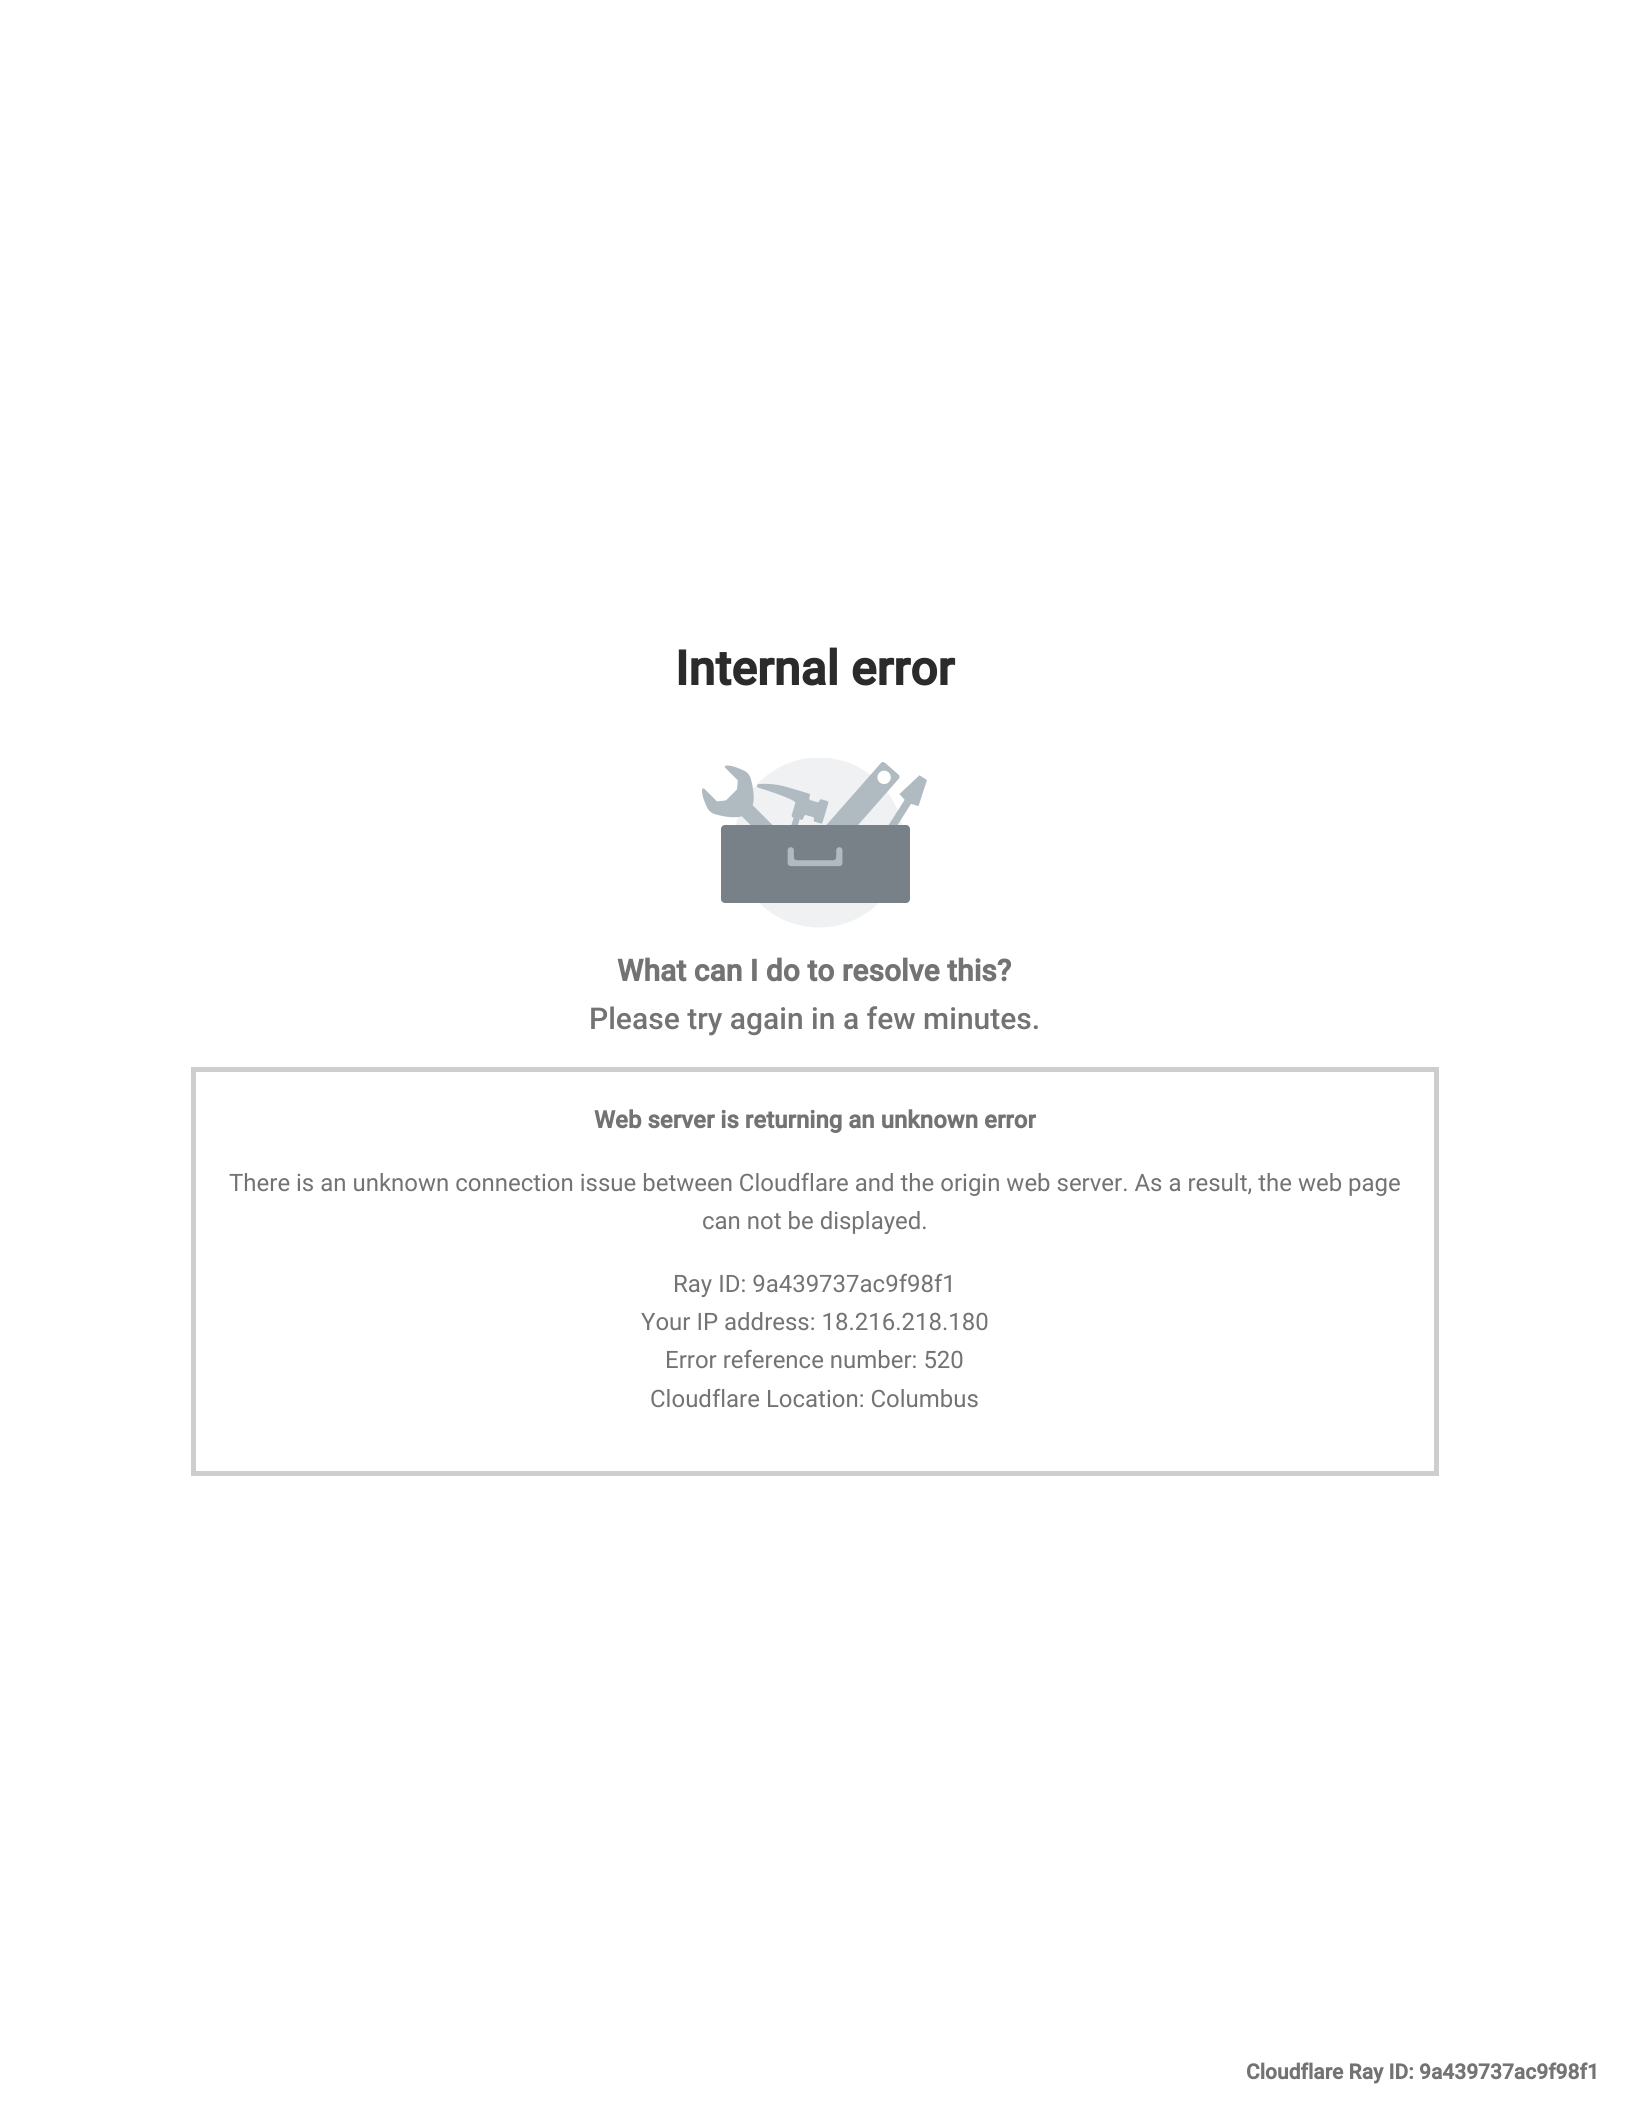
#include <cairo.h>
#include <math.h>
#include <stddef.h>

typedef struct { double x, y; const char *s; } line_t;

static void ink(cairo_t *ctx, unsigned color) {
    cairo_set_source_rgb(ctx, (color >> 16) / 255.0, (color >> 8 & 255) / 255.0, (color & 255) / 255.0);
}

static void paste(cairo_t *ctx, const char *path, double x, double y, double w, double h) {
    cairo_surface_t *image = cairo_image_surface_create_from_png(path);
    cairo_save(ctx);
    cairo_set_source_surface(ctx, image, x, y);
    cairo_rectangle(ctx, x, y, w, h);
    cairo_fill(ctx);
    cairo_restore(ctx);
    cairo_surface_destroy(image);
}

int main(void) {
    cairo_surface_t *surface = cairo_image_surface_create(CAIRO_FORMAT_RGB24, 1628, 2115);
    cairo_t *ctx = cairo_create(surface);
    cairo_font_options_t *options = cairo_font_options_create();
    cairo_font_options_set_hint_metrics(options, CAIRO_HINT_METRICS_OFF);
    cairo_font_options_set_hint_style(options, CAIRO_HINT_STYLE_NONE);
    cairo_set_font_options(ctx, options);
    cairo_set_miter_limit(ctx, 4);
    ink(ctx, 0xFFFFFF);
    cairo_paint(ctx);
    cairo_select_font_face(ctx, "Roboto", CAIRO_FONT_SLANT_NORMAL, CAIRO_FONT_WEIGHT_BOLD);
    cairo_set_font_size(ctx, 48);
    ink(ctx, 0x2B2B2B);
    cairo_move_to(ctx, 675, 685);
    cairo_show_text(ctx, "Internal error");
    paste(ctx, "media/1.png", 702, 758, 225, 170);
    cairo_set_font_size(ctx, 30);
    ink(ctx, 0x737373);
    cairo_move_to(ctx, 617, 981);
    cairo_show_text(ctx, "What can I do to resolve this?");
    cairo_select_font_face(ctx, "Roboto Medium", CAIRO_FONT_SLANT_NORMAL, CAIRO_FONT_WEIGHT_NORMAL);
    cairo_move_to(ctx, 589, 1029);
    cairo_show_text(ctx, "Please try again in a few minutes.");
    cairo_rectangle(ctx, 193.5, 1069.5, 1243, 404);
    ink(ctx, 0xCECECE);
    cairo_set_line_width(ctx, 5);
    cairo_stroke(ctx);
    cairo_select_font_face(ctx, "Roboto", CAIRO_FONT_SLANT_NORMAL, CAIRO_FONT_WEIGHT_BOLD);
    cairo_set_font_size(ctx, 24);
    ink(ctx, 0x737373);
    cairo_move_to(ctx, 594, 1128);
    cairo_show_text(ctx, "Web server is returning an unknown error");
    cairo_select_font_face(ctx, "Roboto", CAIRO_FONT_SLANT_NORMAL, CAIRO_FONT_WEIGHT_NORMAL);
    {
        static const line_t items[] = {
            {229, 1191, "There is an unknown connection issue between Cloudflare and the origin web server. As a result, the web page"},
            {702, 1229, "can not be displayed."},
            {673, 1292, "Ray ID: 9a439737ac9f98f1"},
            {641, 1330, "Your IP address: 18.216.218.180"},
            {665, 1368, "Error reference number: 520"},
            {650, 1407, "Cloudflare Location: Columbus"},
        };
        for (size_t i = 0; i < sizeof items / sizeof *items; i++) {
            cairo_move_to(ctx, items[i].x, items[i].y);
            cairo_show_text(ctx, items[i].s);
        }
    }
    cairo_select_font_face(ctx, "Roboto", CAIRO_FONT_SLANT_NORMAL, CAIRO_FONT_WEIGHT_BOLD);
    cairo_set_font_size(ctx, 21);
    cairo_move_to(ctx, 1246, 2079);
    cairo_show_text(ctx, "Cloudflare Ray ID: 9a439737ac9f98f1");
    cairo_surface_write_to_png(surface, "image.png");
    cairo_font_options_destroy(options);
    cairo_destroy(ctx);
    cairo_surface_destroy(surface);
    return 0;
}
